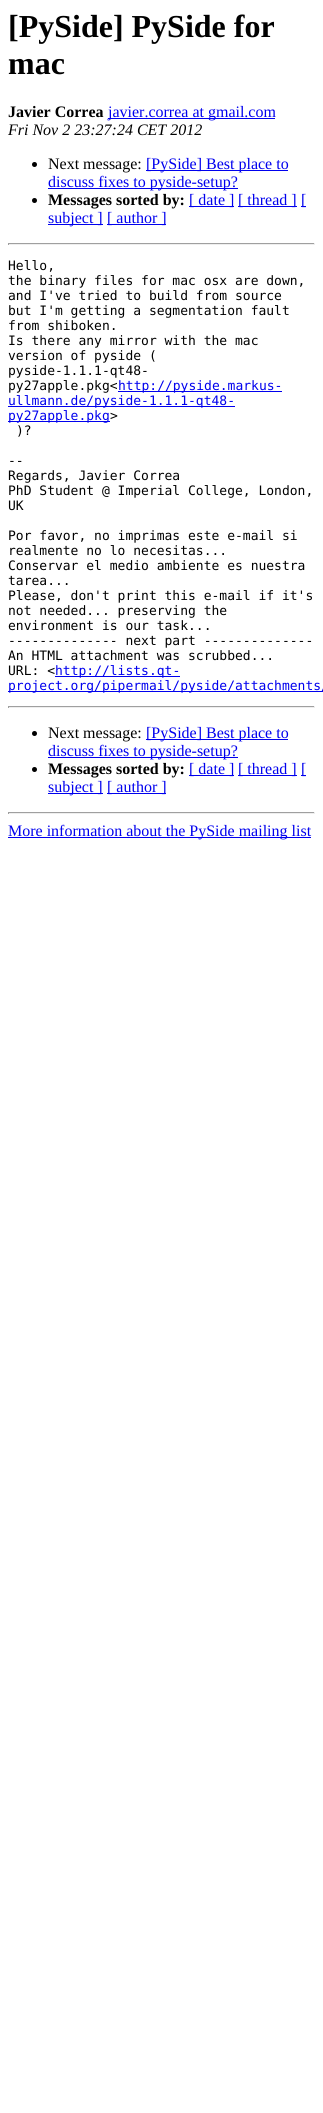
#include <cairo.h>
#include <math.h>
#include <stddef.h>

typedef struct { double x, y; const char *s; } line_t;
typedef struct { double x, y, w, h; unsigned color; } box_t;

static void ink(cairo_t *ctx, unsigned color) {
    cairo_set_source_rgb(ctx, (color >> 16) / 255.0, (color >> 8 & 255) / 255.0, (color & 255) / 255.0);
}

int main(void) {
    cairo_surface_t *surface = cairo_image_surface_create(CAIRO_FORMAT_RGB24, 323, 2113);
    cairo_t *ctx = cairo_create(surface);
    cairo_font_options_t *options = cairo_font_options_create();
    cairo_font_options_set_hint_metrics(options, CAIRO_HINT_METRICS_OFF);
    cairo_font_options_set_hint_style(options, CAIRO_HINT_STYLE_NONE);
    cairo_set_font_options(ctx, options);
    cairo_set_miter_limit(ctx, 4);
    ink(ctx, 0xFFFFFF);
    cairo_paint(ctx);
    cairo_select_font_face(ctx, "Liberation Serif", CAIRO_FONT_SLANT_NORMAL, CAIRO_FONT_WEIGHT_BOLD);
    cairo_set_font_size(ctx, 32);
    ink(ctx, 0x000000);
    cairo_move_to(ctx, 8, 37);
    cairo_show_text(ctx, "[PySide] PySide for");
    cairo_move_to(ctx, 8, 74);
    cairo_show_text(ctx, "mac");
    cairo_set_font_size(ctx, 16);
    cairo_move_to(ctx, 8, 117);
    cairo_show_text(ctx, "Javier Correa");
    ink(ctx, 0x0000EE);
    cairo_rectangle(ctx, 108, 118, 167, 1);
    cairo_fill(ctx);
    cairo_select_font_face(ctx, "Liberation Serif", CAIRO_FONT_SLANT_NORMAL, CAIRO_FONT_WEIGHT_NORMAL);
    cairo_move_to(ctx, 108, 117);
    cairo_show_text(ctx, "javier.correa at gmail.com");
    cairo_select_font_face(ctx, "Liberation Serif", CAIRO_FONT_SLANT_ITALIC, CAIRO_FONT_WEIGHT_NORMAL);
    ink(ctx, 0x000000);
    cairo_move_to(ctx, 8, 135);
    cairo_show_text(ctx, "Fri Nov 2 23:27:24 CET 2012");
    cairo_new_path(ctx);
    cairo_arc(ctx, 34.5, 164.5, 2.5, 0, 2 * M_PI);
    cairo_fill(ctx);
    cairo_select_font_face(ctx, "Liberation Serif", CAIRO_FONT_SLANT_NORMAL, CAIRO_FONT_WEIGHT_NORMAL);
    cairo_move_to(ctx, 48, 169);
    cairo_show_text(ctx, "Next message:");
    ink(ctx, 0x0000EE);
    cairo_rectangle(ctx, 146, 170, 142, 1);
    cairo_fill(ctx);
    cairo_move_to(ctx, 146, 169);
    cairo_show_text(ctx, "[PySide] Best place to");
    cairo_rectangle(ctx, 48, 188, 190, 1);
    cairo_fill(ctx);
    cairo_move_to(ctx, 48, 187);
    cairo_show_text(ctx, "discuss fixes to pyside-setup?");
    ink(ctx, 0x000000);
    cairo_new_path(ctx);
    cairo_arc(ctx, 34.5, 200.5, 2.5, 0, 2 * M_PI);
    cairo_fill(ctx);
    cairo_select_font_face(ctx, "Liberation Serif", CAIRO_FONT_SLANT_NORMAL, CAIRO_FONT_WEIGHT_BOLD);
    cairo_move_to(ctx, 48, 205);
    cairo_show_text(ctx, "Messages sorted by:");
    ink(ctx, 0x0000EE);
    cairo_rectangle(ctx, 189, 206, 45, 1);
    cairo_fill(ctx);
    cairo_select_font_face(ctx, "Liberation Serif", CAIRO_FONT_SLANT_NORMAL, CAIRO_FONT_WEIGHT_NORMAL);
    cairo_move_to(ctx, 189, 205);
    cairo_show_text(ctx, "[ date ]");
    cairo_rectangle(ctx, 238, 206, 59, 1);
    cairo_fill(ctx);
    cairo_move_to(ctx, 238, 205);
    cairo_show_text(ctx, "[ thread ]");
    cairo_rectangle(ctx, 301, 206, 5, 1);
    cairo_fill(ctx);
    cairo_move_to(ctx, 301, 205);
    cairo_show_text(ctx, "[");
    cairo_rectangle(ctx, 48, 224, 55, 1);
    cairo_fill(ctx);
    cairo_move_to(ctx, 48, 223);
    cairo_show_text(ctx, "subject ]");
    cairo_rectangle(ctx, 107, 224, 59, 1);
    cairo_fill(ctx);
    cairo_move_to(ctx, 107, 223);
    cairo_show_text(ctx, "[ author ]");
    {
        static const box_t items[] = {
            {8, 243, 307, 1, 0x9F9F9F},
            {314, 243, 1, 2, 0xEEEEEE},
            {8, 244, 307, 1, 0xEEEEEE},
            {8, 243, 1, 2, 0x9F9F9F},
        };
        for (size_t i = 0; i < sizeof items / sizeof *items; i++) {
            ink(ctx, items[i].color);
            cairo_rectangle(ctx, items[i].x, items[i].y, items[i].w, items[i].h);
            cairo_fill(ctx);
        }
    }
    cairo_select_font_face(ctx, "DejaVu Sans Mono", CAIRO_FONT_SLANT_NORMAL, CAIRO_FONT_WEIGHT_NORMAL);
    cairo_set_font_size(ctx, 13);
    ink(ctx, 0x000000);
    {
        static const line_t items[] = {
            {8, 270, "Hello,"},
            {8, 285, "the binary files for mac osx are down,"},
            {8, 300, "and I've tried to build from source"},
            {8, 315, "but I'm getting a segmentation fault"},
            {8, 330, "from shiboken."},
            {8, 345, "Is there any mirror with the mac"},
            {8, 360, "version of pyside ("},
            {8, 375, "pyside-1.1.1-qt48-"},
            {8, 390, "py27apple.pkg<"},
        };
        for (size_t i = 0; i < sizeof items / sizeof *items; i++) {
            cairo_move_to(ctx, items[i].x, items[i].y);
            cairo_show_text(ctx, items[i].s);
        }
    }
    ink(ctx, 0x0000EE);
    cairo_rectangle(ctx, 118, 391, 164, 1);
    cairo_fill(ctx);
    cairo_move_to(ctx, 118, 390);
    cairo_show_text(ctx, "http://pyside.markus-");
    cairo_rectangle(ctx, 8, 406, 227, 1);
    cairo_fill(ctx);
    cairo_move_to(ctx, 8, 405);
    cairo_show_text(ctx, "ullmann.de/pyside-1.1.1-qt48-");
    cairo_rectangle(ctx, 8, 421, 102, 1);
    cairo_fill(ctx);
    cairo_move_to(ctx, 8, 420);
    cairo_show_text(ctx, "py27apple.pkg");
    ink(ctx, 0x000000);
    {
        static const line_t items[] = {
            {110, 420, ">"},
            {16, 435, ")?"},
            {8, 465, "--"},
            {8, 480, "Regards, Javier Correa"},
            {8, 495, "PhD Student @ Imperial College, London,"},
            {8, 510, "UK"},
            {8, 540, "Por favor, no imprimas este e-mail si"},
            {8, 555, "realmente no lo necesitas..."},
            {8, 570, "Conservar el medio ambiente es nuestra"},
            {8, 585, "tarea..."},
            {8, 600, "Please, don't print this e-mail if it's"},
            {8, 615, "not needed... preserving the"},
            {8, 630, "environment is our task..."},
            {8, 645, "-------------- next part --------------"},
            {8, 660, "An HTML attachment was scrubbed..."},
            {8, 675, "URL: <"},
        };
        for (size_t i = 0; i < sizeof items / sizeof *items; i++) {
            cairo_move_to(ctx, items[i].x, items[i].y);
            cairo_show_text(ctx, items[i].s);
        }
    }
    ink(ctx, 0x0000EE);
    cairo_rectangle(ctx, 55, 676, 125, 1);
    cairo_fill(ctx);
    cairo_move_to(ctx, 55, 675);
    cairo_show_text(ctx, "http://lists.qt-");
    cairo_rectangle(ctx, 8, 691, 315, 1);
    cairo_fill(ctx);
    cairo_move_to(ctx, 8, 690);
    cairo_show_text(ctx, "project.org/pipermail/pyside/attachments/");
    {
        static const box_t items[] = {
            {8, 706, 307, 1, 0x9F9F9F},
            {314, 706, 1, 2, 0xEEEEEE},
            {8, 707, 307, 1, 0xEEEEEE},
            {8, 706, 1, 2, 0x9F9F9F},
        };
        for (size_t i = 0; i < sizeof items / sizeof *items; i++) {
            ink(ctx, items[i].color);
            cairo_rectangle(ctx, items[i].x, items[i].y, items[i].w, items[i].h);
            cairo_fill(ctx);
        }
    }
    ink(ctx, 0x000000);
    cairo_new_path(ctx);
    cairo_arc(ctx, 34.5, 733.5, 2.5, 0, 2 * M_PI);
    cairo_fill(ctx);
    cairo_select_font_face(ctx, "Liberation Serif", CAIRO_FONT_SLANT_NORMAL, CAIRO_FONT_WEIGHT_NORMAL);
    cairo_set_font_size(ctx, 16);
    cairo_move_to(ctx, 48, 738);
    cairo_show_text(ctx, "Next message:");
    ink(ctx, 0x0000EE);
    cairo_rectangle(ctx, 146, 739, 142, 1);
    cairo_fill(ctx);
    cairo_move_to(ctx, 146, 738);
    cairo_show_text(ctx, "[PySide] Best place to");
    cairo_rectangle(ctx, 48, 757, 190, 1);
    cairo_fill(ctx);
    cairo_move_to(ctx, 48, 756);
    cairo_show_text(ctx, "discuss fixes to pyside-setup?");
    ink(ctx, 0x000000);
    cairo_new_path(ctx);
    cairo_arc(ctx, 34.5, 769.5, 2.5, 0, 2 * M_PI);
    cairo_fill(ctx);
    cairo_select_font_face(ctx, "Liberation Serif", CAIRO_FONT_SLANT_NORMAL, CAIRO_FONT_WEIGHT_BOLD);
    cairo_move_to(ctx, 48, 774);
    cairo_show_text(ctx, "Messages sorted by:");
    ink(ctx, 0x0000EE);
    cairo_rectangle(ctx, 189, 775, 45, 1);
    cairo_fill(ctx);
    cairo_select_font_face(ctx, "Liberation Serif", CAIRO_FONT_SLANT_NORMAL, CAIRO_FONT_WEIGHT_NORMAL);
    cairo_move_to(ctx, 189, 774);
    cairo_show_text(ctx, "[ date ]");
    cairo_rectangle(ctx, 238, 775, 59, 1);
    cairo_fill(ctx);
    cairo_move_to(ctx, 238, 774);
    cairo_show_text(ctx, "[ thread ]");
    cairo_rectangle(ctx, 301, 775, 5, 1);
    cairo_fill(ctx);
    cairo_move_to(ctx, 301, 774);
    cairo_show_text(ctx, "[");
    cairo_rectangle(ctx, 48, 793, 55, 1);
    cairo_fill(ctx);
    cairo_move_to(ctx, 48, 792);
    cairo_show_text(ctx, "subject ]");
    cairo_rectangle(ctx, 107, 793, 59, 1);
    cairo_fill(ctx);
    cairo_move_to(ctx, 107, 792);
    cairo_show_text(ctx, "[ author ]");
    {
        static const box_t items[] = {
            {8, 812, 307, 1, 0x9F9F9F},
            {314, 812, 1, 2, 0xEEEEEE},
            {8, 813, 307, 1, 0xEEEEEE},
            {8, 812, 1, 2, 0x9F9F9F},
            {8, 837, 303, 1, 0x0000EE},
        };
        for (size_t i = 0; i < sizeof items / sizeof *items; i++) {
            ink(ctx, items[i].color);
            cairo_rectangle(ctx, items[i].x, items[i].y, items[i].w, items[i].h);
            cairo_fill(ctx);
        }
    }
    cairo_move_to(ctx, 8, 836);
    cairo_show_text(ctx, "More information about the PySide mailing list");
    cairo_surface_write_to_png(surface, "image.png");
    cairo_font_options_destroy(options);
    cairo_destroy(ctx);
    cairo_surface_destroy(surface);
    return 0;
}
